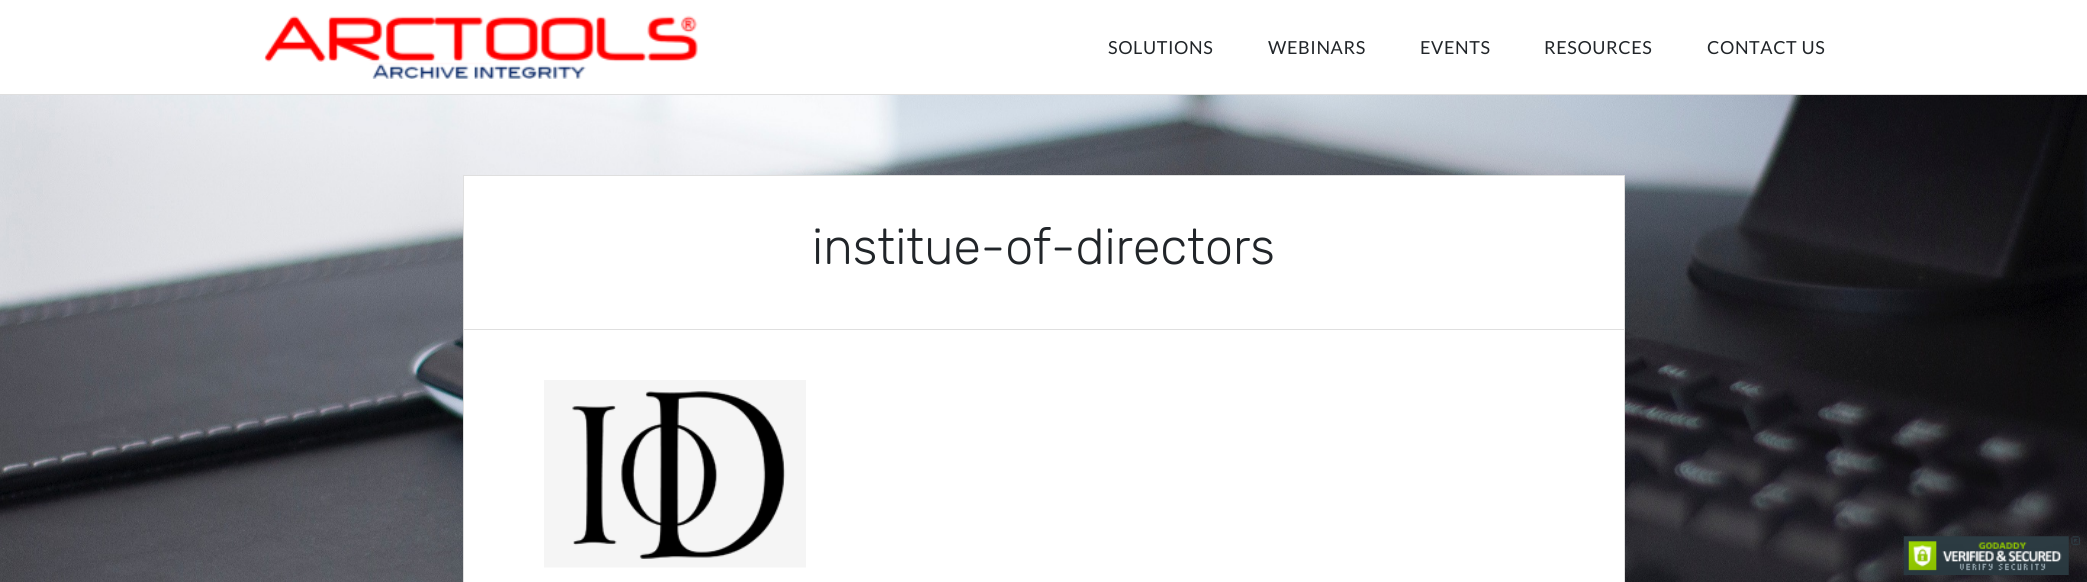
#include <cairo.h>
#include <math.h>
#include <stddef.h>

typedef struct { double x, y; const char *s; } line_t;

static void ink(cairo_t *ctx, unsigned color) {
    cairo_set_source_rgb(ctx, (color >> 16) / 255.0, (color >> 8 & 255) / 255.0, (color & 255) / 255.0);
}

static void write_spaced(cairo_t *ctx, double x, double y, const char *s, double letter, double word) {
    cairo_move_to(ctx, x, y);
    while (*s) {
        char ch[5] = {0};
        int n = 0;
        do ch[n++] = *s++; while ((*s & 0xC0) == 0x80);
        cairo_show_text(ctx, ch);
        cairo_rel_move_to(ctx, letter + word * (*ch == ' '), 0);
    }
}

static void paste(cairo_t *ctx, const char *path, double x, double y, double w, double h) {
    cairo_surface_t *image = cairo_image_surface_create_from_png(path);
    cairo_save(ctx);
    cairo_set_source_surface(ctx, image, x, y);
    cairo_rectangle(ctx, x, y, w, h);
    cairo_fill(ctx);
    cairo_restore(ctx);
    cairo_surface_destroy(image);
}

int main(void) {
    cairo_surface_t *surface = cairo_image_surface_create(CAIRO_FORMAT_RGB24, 2087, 582);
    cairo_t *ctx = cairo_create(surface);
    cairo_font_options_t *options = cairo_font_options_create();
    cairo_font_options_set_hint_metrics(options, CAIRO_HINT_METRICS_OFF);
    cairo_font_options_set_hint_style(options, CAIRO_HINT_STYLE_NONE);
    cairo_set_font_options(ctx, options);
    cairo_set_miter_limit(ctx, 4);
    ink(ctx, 0xFFFFFF);
    cairo_paint(ctx);
    paste(ctx, "media/1.png", 0, 95, 2087, 487);
    ink(ctx, 0xDFDFDF);
    cairo_rectangle(ctx, 0, 94, 2087, 1);
    cairo_fill(ctx);
    paste(ctx, "media/2.png", 264, 15, 434, 64);
    cairo_select_font_face(ctx, "Lato", CAIRO_FONT_SLANT_NORMAL, CAIRO_FONT_WEIGHT_NORMAL);
    cairo_set_font_size(ctx, 18);
    ink(ctx, 0x212529);
    {
        static const line_t items[] = {
            {1108, 54, "SOLUTIONS"},
            {1268, 54, "WEBINARS"},
            {1420, 54, "EVENTS"},
            {1544, 54, "RESOURCES"},
            {1707, 54, "CONTACT US"},
        };
        for (size_t i = 0; i < sizeof items / sizeof *items; i++) {
            write_spaced(ctx, items[i].x, items[i].y, items[i].s, 0.6, 0);
        }
    }
    ink(ctx, 0xFFFFFF);
    cairo_rectangle(ctx, 463.5, 175.5, 1161, 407);
    cairo_fill_preserve(ctx);
    ink(ctx, 0xDFDFDF);
    cairo_set_line_width(ctx, 1);
    cairo_stroke(ctx);
    cairo_rectangle(ctx, 464, 329, 1160, 1);
    cairo_fill(ctx);
    cairo_select_font_face(ctx, "Rubik Light", CAIRO_FONT_SLANT_NORMAL, CAIRO_FONT_WEIGHT_NORMAL);
    cairo_set_font_size(ctx, 50);
    ink(ctx, 0x212529);
    cairo_move_to(ctx, 812, 264);
    cairo_show_text(ctx, "institue-of-directors");
    paste(ctx, "media/3.png", 544, 380, 262, 188);
    paste(ctx, "media/4.png", 1903, 536, 177, 39);
    cairo_surface_write_to_png(surface, "image.png");
    cairo_font_options_destroy(options);
    cairo_destroy(ctx);
    cairo_surface_destroy(surface);
    return 0;
}
